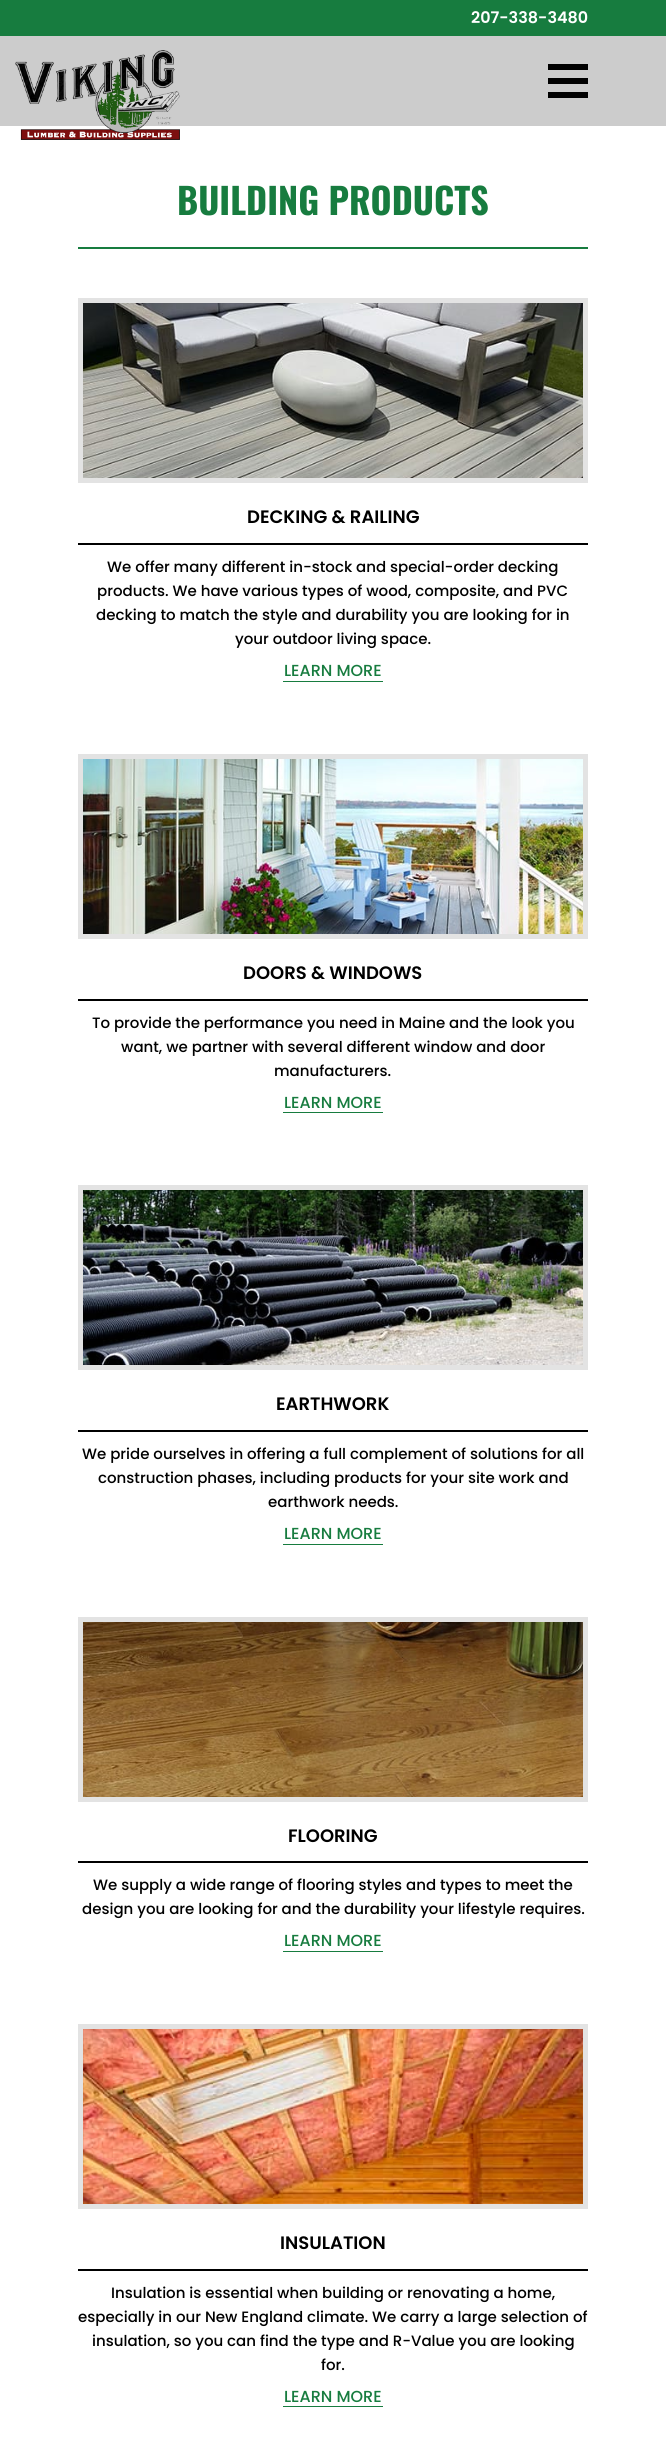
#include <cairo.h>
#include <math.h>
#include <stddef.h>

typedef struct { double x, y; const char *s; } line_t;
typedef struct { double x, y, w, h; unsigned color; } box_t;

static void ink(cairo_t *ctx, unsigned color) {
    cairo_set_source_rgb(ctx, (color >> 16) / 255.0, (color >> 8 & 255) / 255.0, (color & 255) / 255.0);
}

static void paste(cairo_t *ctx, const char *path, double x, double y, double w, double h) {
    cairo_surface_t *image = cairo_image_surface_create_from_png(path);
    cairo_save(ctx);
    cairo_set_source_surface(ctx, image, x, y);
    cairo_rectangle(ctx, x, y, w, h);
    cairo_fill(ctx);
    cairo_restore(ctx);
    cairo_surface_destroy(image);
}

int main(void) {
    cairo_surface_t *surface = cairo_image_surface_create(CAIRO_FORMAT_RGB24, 666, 2450);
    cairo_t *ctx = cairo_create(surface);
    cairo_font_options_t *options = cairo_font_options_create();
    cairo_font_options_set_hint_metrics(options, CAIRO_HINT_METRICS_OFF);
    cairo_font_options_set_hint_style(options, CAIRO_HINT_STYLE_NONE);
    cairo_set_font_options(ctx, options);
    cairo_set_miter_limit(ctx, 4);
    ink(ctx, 0xFFFFFF);
    cairo_paint(ctx);
    ink(ctx, 0x177C3F);
    cairo_rectangle(ctx, 0, 0, 666, 36);
    cairo_fill(ctx);
    cairo_select_font_face(ctx, "Poppins SemiBold", CAIRO_FONT_SLANT_NORMAL, CAIRO_FONT_WEIGHT_NORMAL);
    cairo_set_font_size(ctx, 16);
    ink(ctx, 0xFFFFFF);
    cairo_move_to(ctx, 471, 23);
    cairo_show_text(ctx, "207-338-3480");
    {
        static const box_t items[] = {
            {0, 36, 666, 90, 0xCCCCCC},
            {548, 78, 40, 6, 0x000000},
            {548, 64, 40, 6, 0x000000},
            {548, 92, 40, 6, 0x000000},
        };
        for (size_t i = 0; i < sizeof items / sizeof *items; i++) {
            ink(ctx, items[i].color);
            cairo_rectangle(ctx, items[i].x, items[i].y, items[i].w, items[i].h);
            cairo_fill(ctx);
        }
    }
    paste(ctx, "media/1.png", 15, 50, 165, 90);
    cairo_select_font_face(ctx, "Oswald", CAIRO_FONT_SLANT_NORMAL, CAIRO_FONT_WEIGHT_BOLD);
    cairo_set_font_size(ctx, 36);
    ink(ctx, 0x177C3F);
    cairo_move_to(ctx, 177, 215);
    cairo_show_text(ctx, "BUILDING PRODUCTS");
    cairo_rectangle(ctx, 78, 247, 510, 2);
    cairo_fill(ctx);
    paste(ctx, "media/2.png", 83, 303, 500, 175);
    cairo_rectangle(ctx, 80.5, 300.5, 505, 180);
    ink(ctx, 0xE3E3E3);
    cairo_set_line_width(ctx, 5);
    cairo_stroke(ctx);
    cairo_select_font_face(ctx, "Poppins SemiBold", CAIRO_FONT_SLANT_NORMAL, CAIRO_FONT_WEIGHT_NORMAL);
    cairo_set_font_size(ctx, 18);
    ink(ctx, 0x000000);
    cairo_move_to(ctx, 247, 523);
    cairo_show_text(ctx, "DECKING & RAILING");
    cairo_rectangle(ctx, 78, 543, 510, 2);
    cairo_fill(ctx);
    cairo_select_font_face(ctx, "Poppins Medium", CAIRO_FONT_SLANT_NORMAL, CAIRO_FONT_WEIGHT_NORMAL);
    cairo_set_font_size(ctx, 15);
    {
        static const line_t items[] = {
            {107, 572, "We offer many different in-stock and special-order decking"},
            {97, 596, "products. We have various types of wood, composite, and PVC"},
            {96, 620, "decking to match the style and durability you are looking for in"},
            {235, 644, "your outdoor living space."},
        };
        for (size_t i = 0; i < sizeof items / sizeof *items; i++) {
            cairo_move_to(ctx, items[i].x, items[i].y);
            cairo_show_text(ctx, items[i].s);
        }
    }
    cairo_set_font_size(ctx, 16);
    ink(ctx, 0x177C3F);
    cairo_move_to(ctx, 284, 676);
    cairo_show_text(ctx, "LEARN MORE");
    cairo_rectangle(ctx, 283, 681, 100, 1);
    cairo_fill(ctx);
    paste(ctx, "media/3.png", 83, 759, 500, 175);
    cairo_rectangle(ctx, 80.5, 756.5, 505, 180);
    ink(ctx, 0xE3E3E3);
    cairo_stroke(ctx);
    cairo_select_font_face(ctx, "Poppins SemiBold", CAIRO_FONT_SLANT_NORMAL, CAIRO_FONT_WEIGHT_NORMAL);
    cairo_set_font_size(ctx, 18);
    ink(ctx, 0x000000);
    cairo_move_to(ctx, 243, 979);
    cairo_show_text(ctx, "DOORS & WINDOWS");
    cairo_rectangle(ctx, 78, 999, 510, 2);
    cairo_fill(ctx);
    cairo_select_font_face(ctx, "Poppins Medium", CAIRO_FONT_SLANT_NORMAL, CAIRO_FONT_WEIGHT_NORMAL);
    cairo_set_font_size(ctx, 15);
    {
        static const line_t items[] = {
            {92, 1028, "To provide the performance you need in Maine and the look you"},
            {121, 1052, "want, we partner with several different window and door"},
            {274, 1076, "manufacturers."},
        };
        for (size_t i = 0; i < sizeof items / sizeof *items; i++) {
            cairo_move_to(ctx, items[i].x, items[i].y);
            cairo_show_text(ctx, items[i].s);
        }
    }
    cairo_set_font_size(ctx, 16);
    ink(ctx, 0x177C3F);
    cairo_move_to(ctx, 284, 1108);
    cairo_show_text(ctx, "LEARN MORE");
    cairo_rectangle(ctx, 283, 1112, 100, 1);
    cairo_fill(ctx);
    paste(ctx, "media/4.png", 83, 1190, 500, 175);
    cairo_rectangle(ctx, 80.5, 1187.5, 505, 180);
    ink(ctx, 0xE3E3E3);
    cairo_stroke(ctx);
    cairo_select_font_face(ctx, "Poppins SemiBold", CAIRO_FONT_SLANT_NORMAL, CAIRO_FONT_WEIGHT_NORMAL);
    cairo_set_font_size(ctx, 18);
    ink(ctx, 0x000000);
    cairo_move_to(ctx, 276, 1410);
    cairo_show_text(ctx, "EARTHWORK");
    cairo_rectangle(ctx, 78, 1430, 510, 2);
    cairo_fill(ctx);
    cairo_select_font_face(ctx, "Poppins Medium", CAIRO_FONT_SLANT_NORMAL, CAIRO_FONT_WEIGHT_NORMAL);
    cairo_set_font_size(ctx, 15);
    {
        static const line_t items[] = {
            {82, 1459, "We pride ourselves in offering a full complement of solutions for all"},
            {98, 1483, "construction phases, including products for your site work and"},
            {268, 1507, "earthwork needs."},
        };
        for (size_t i = 0; i < sizeof items / sizeof *items; i++) {
            cairo_move_to(ctx, items[i].x, items[i].y);
            cairo_show_text(ctx, items[i].s);
        }
    }
    cairo_set_font_size(ctx, 16);
    ink(ctx, 0x177C3F);
    cairo_move_to(ctx, 284, 1539);
    cairo_show_text(ctx, "LEARN MORE");
    cairo_rectangle(ctx, 283, 1544, 100, 1);
    cairo_fill(ctx);
    paste(ctx, "media/5.png", 83, 1622, 500, 175);
    cairo_rectangle(ctx, 80.5, 1619.5, 505, 180);
    ink(ctx, 0xE3E3E3);
    cairo_stroke(ctx);
    cairo_select_font_face(ctx, "Poppins SemiBold", CAIRO_FONT_SLANT_NORMAL, CAIRO_FONT_WEIGHT_NORMAL);
    cairo_set_font_size(ctx, 18);
    ink(ctx, 0x000000);
    cairo_move_to(ctx, 288, 1842);
    cairo_show_text(ctx, "FLOORING");
    cairo_rectangle(ctx, 78, 1861, 510, 2);
    cairo_fill(ctx);
    cairo_select_font_face(ctx, "Poppins Medium", CAIRO_FONT_SLANT_NORMAL, CAIRO_FONT_WEIGHT_NORMAL);
    cairo_set_font_size(ctx, 15);
    cairo_move_to(ctx, 93, 1890);
    cairo_show_text(ctx, "We supply a wide range of flooring styles and types to meet the");
    cairo_move_to(ctx, 82, 1914);
    cairo_show_text(ctx, "design you are looking for and the durability your lifestyle requires.");
    cairo_set_font_size(ctx, 16);
    ink(ctx, 0x177C3F);
    cairo_move_to(ctx, 284, 1946);
    cairo_show_text(ctx, "LEARN MORE");
    cairo_rectangle(ctx, 283, 1951, 100, 1);
    cairo_fill(ctx);
    paste(ctx, "media/6.png", 83, 2029, 500, 175);
    cairo_rectangle(ctx, 80.5, 2026.5, 505, 180);
    ink(ctx, 0xE3E3E3);
    cairo_stroke(ctx);
    cairo_select_font_face(ctx, "Poppins SemiBold", CAIRO_FONT_SLANT_NORMAL, CAIRO_FONT_WEIGHT_NORMAL);
    cairo_set_font_size(ctx, 18);
    ink(ctx, 0x000000);
    cairo_move_to(ctx, 280, 2249);
    cairo_show_text(ctx, "INSULATION");
    cairo_rectangle(ctx, 78, 2269, 510, 2);
    cairo_fill(ctx);
    cairo_select_font_face(ctx, "Poppins Medium", CAIRO_FONT_SLANT_NORMAL, CAIRO_FONT_WEIGHT_NORMAL);
    cairo_set_font_size(ctx, 15);
    {
        static const line_t items[] = {
            {111, 2298, "Insulation is essential when building or renovating a home,"},
            {78, 2322, "especially in our New England climate. We carry a large selection of"},
            {92, 2346, "insulation, so you can find the type and R-Value you are looking"},
            {321, 2370, "for."},
        };
        for (size_t i = 0; i < sizeof items / sizeof *items; i++) {
            cairo_move_to(ctx, items[i].x, items[i].y);
            cairo_show_text(ctx, items[i].s);
        }
    }
    cairo_set_font_size(ctx, 16);
    ink(ctx, 0x177C3F);
    cairo_move_to(ctx, 284, 2402);
    cairo_show_text(ctx, "LEARN MORE");
    cairo_rectangle(ctx, 283, 2406, 100, 1);
    cairo_fill(ctx);
    cairo_surface_write_to_png(surface, "image.png");
    cairo_font_options_destroy(options);
    cairo_destroy(ctx);
    cairo_surface_destroy(surface);
    return 0;
}
